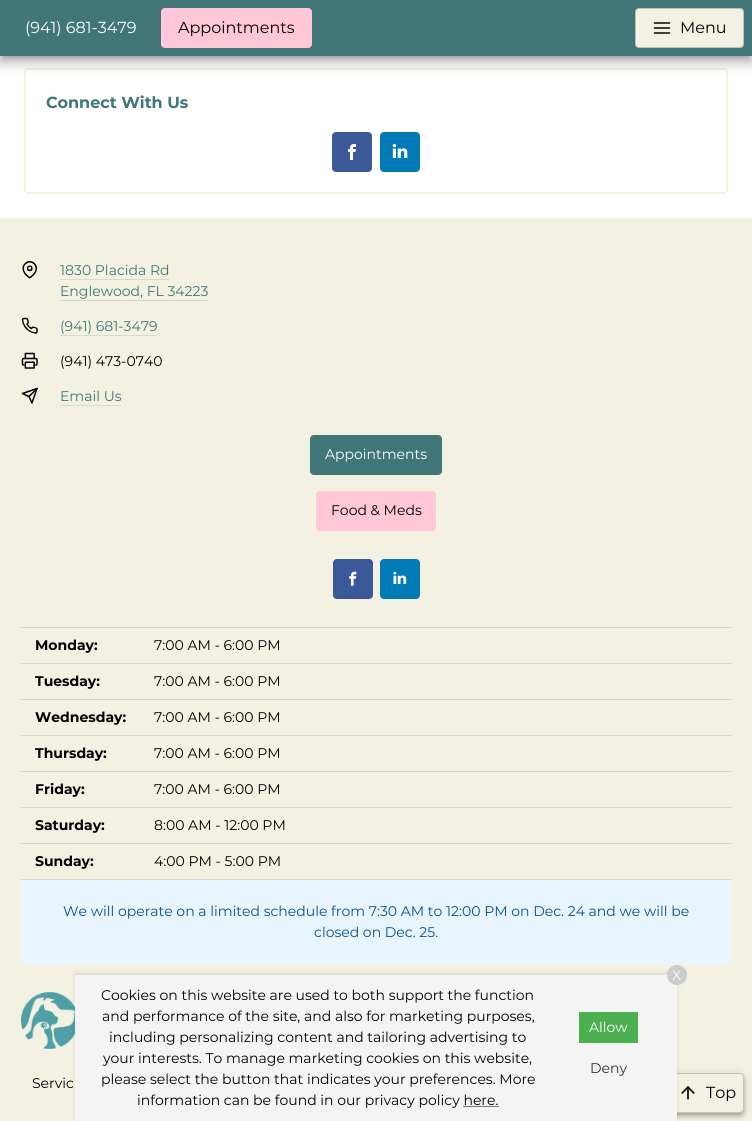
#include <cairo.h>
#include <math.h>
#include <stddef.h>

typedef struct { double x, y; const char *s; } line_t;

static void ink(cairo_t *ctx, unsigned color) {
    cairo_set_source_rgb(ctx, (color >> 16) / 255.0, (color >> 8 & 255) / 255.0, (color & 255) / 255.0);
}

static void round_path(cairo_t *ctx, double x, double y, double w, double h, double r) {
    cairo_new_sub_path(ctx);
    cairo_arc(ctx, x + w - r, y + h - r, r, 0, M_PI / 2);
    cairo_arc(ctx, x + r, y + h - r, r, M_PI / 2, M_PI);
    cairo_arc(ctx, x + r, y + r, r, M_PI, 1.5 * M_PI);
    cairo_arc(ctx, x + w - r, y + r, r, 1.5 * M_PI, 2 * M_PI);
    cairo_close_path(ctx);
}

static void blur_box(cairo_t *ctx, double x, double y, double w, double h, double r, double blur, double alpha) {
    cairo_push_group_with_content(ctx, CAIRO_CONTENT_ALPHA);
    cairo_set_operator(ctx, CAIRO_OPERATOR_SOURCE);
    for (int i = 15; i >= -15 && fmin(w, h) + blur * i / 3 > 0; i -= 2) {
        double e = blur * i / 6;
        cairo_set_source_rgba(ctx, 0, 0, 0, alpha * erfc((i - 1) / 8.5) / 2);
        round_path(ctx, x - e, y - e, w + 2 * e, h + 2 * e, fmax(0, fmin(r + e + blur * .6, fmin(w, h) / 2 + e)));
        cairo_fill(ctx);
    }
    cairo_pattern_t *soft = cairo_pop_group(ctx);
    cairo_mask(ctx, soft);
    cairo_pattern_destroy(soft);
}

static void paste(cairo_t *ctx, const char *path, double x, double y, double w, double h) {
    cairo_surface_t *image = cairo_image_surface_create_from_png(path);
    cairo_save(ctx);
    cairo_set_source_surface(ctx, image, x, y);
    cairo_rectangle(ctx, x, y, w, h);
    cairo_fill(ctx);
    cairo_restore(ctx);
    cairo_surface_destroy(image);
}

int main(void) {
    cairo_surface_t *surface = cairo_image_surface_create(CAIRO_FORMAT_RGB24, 752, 1121);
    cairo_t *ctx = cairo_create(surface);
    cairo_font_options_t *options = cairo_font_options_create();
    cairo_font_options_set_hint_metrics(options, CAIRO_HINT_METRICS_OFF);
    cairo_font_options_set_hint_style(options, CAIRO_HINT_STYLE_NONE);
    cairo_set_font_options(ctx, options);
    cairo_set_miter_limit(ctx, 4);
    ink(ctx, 0xFFFFFF);
    cairo_paint(ctx);
    round_path(ctx, 25, 69, 702, 124, 3);
    ink(ctx, 0xF3F1E2);
    cairo_stroke(ctx);
    ink(ctx, 0x000000);
    blur_box(ctx, -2, 1, 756, 60, 0, 7, 0.12);
    blur_box(ctx, -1, 7, 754, 58, 0, 5, 0.14);
    blur_box(ctx, 3, 8, 746, 50, 0, 2.5, 0.2);
    ink(ctx, 0x407677);
    cairo_rectangle(ctx, 0, 0, 752, 56);
    cairo_fill(ctx);
    cairo_select_font_face(ctx, "Montserrat", CAIRO_FONT_SLANT_NORMAL, CAIRO_FONT_WEIGHT_NORMAL);
    cairo_set_font_size(ctx, 16);
    ink(ctx, 0xFFFFFF);
    cairo_move_to(ctx, 25, 33);
    cairo_show_text(ctx, "(941) 681-3479");
    ink(ctx, 0xFFC7D7);
    round_path(ctx, 161, 8, 151, 40, 4);
    cairo_fill(ctx);
    ink(ctx, 0x000000);
    cairo_move_to(ctx, 178, 33);
    cairo_show_text(ctx, "Appointments");
    ink(ctx, 0xF3F1E2);
    round_path(ctx, 635, 8, 109, 40, 4);
    cairo_fill(ctx);
    round_path(ctx, 635.5, 8.5, 108, 39, 3.5);
    cairo_set_source_rgba(ctx, 0, 0, 0, 0.2);
    cairo_set_line_width(ctx, 1);
    cairo_stroke(ctx);
    paste(ctx, "media/1.png", 653, 22, 18, 12);
    ink(ctx, 0x000000);
    cairo_move_to(ctx, 680, 33);
    cairo_show_text(ctx, "Menu");
    cairo_select_font_face(ctx, "Montserrat", CAIRO_FONT_SLANT_NORMAL, CAIRO_FONT_WEIGHT_BOLD);
    ink(ctx, 0x407677);
    cairo_move_to(ctx, 46, 108);
    cairo_show_text(ctx, "Connect With Us");
    ink(ctx, 0x3B5998);
    round_path(ctx, 332, 132, 40, 40, 4);
    cairo_fill(ctx);
    paste(ctx, "media/2.png", 348, 144, 8, 16);
    ink(ctx, 0x007BB6);
    round_path(ctx, 380, 132, 40, 40, 4);
    cairo_fill(ctx);
    paste(ctx, "media/3.png", 392, 144, 16, 14);
    ink(ctx, 0xF3F1E2);
    cairo_rectangle(ctx, 0, 218, 752, 903);
    cairo_fill(ctx);
    paste(ctx, "media/4.png", 22, 261, 15, 18);
    cairo_select_font_face(ctx, "Montserrat", CAIRO_FONT_SLANT_NORMAL, CAIRO_FONT_WEIGHT_NORMAL);
    cairo_set_font_size(ctx, 14);
    ink(ctx, 0x407677);
    cairo_move_to(ctx, 60, 275);
    cairo_show_text(ctx, "1830 Placida Rd");
    ink(ctx, 0xDBD9CB);
    cairo_rectangle(ctx, 60, 279, 109, 1);
    cairo_fill(ctx);
    ink(ctx, 0x407677);
    cairo_move_to(ctx, 60, 296);
    cairo_show_text(ctx, "Englewood, FL 34223");
    ink(ctx, 0xDBD9CB);
    cairo_rectangle(ctx, 60, 300, 148, 1);
    cairo_fill(ctx);
    paste(ctx, "media/5.png", 21, 317, 17, 17);
    ink(ctx, 0x407677);
    cairo_move_to(ctx, 60, 331);
    cairo_show_text(ctx, "(941) 681-3479");
    ink(ctx, 0xDBD9CB);
    cairo_rectangle(ctx, 60, 335, 97, 1);
    cairo_fill(ctx);
    paste(ctx, "media/6.png", 21, 352, 17, 17);
    ink(ctx, 0x000000);
    cairo_move_to(ctx, 60, 366);
    cairo_show_text(ctx, "(941) 473-0740");
    paste(ctx, "media/7.png", 21, 387, 17, 17);
    ink(ctx, 0x407677);
    cairo_move_to(ctx, 60, 401);
    cairo_show_text(ctx, "Email Us");
    ink(ctx, 0xDBD9CB);
    cairo_rectangle(ctx, 60, 405, 61, 1);
    cairo_fill(ctx);
    ink(ctx, 0x407677);
    round_path(ctx, 310, 435, 132, 40, 4);
    cairo_fill(ctx);
    ink(ctx, 0xFFFFFF);
    cairo_move_to(ctx, 325, 459);
    cairo_show_text(ctx, "Appointments");
    ink(ctx, 0xFFC7D7);
    round_path(ctx, 316, 491, 120, 40, 4);
    cairo_fill(ctx);
    ink(ctx, 0x000000);
    cairo_move_to(ctx, 331, 515);
    cairo_show_text(ctx, "Food & Meds");
    ink(ctx, 0x3B5998);
    round_path(ctx, 333, 559, 40, 40, 4);
    cairo_fill(ctx);
    paste(ctx, "media/8.png", 349, 571, 8, 15);
    ink(ctx, 0x007BB6);
    round_path(ctx, 380, 559, 40, 40, 4);
    cairo_fill(ctx);
    paste(ctx, "media/9.png", 393, 571, 14, 13);
    ink(ctx, 0xDBD9CB);
    cairo_rectangle(ctx, 21, 879, 710, 1);
    cairo_fill(ctx);
    cairo_rectangle(ctx, 21, 627, 711, 1);
    cairo_fill(ctx);
    cairo_select_font_face(ctx, "Montserrat", CAIRO_FONT_SLANT_NORMAL, CAIRO_FONT_WEIGHT_BOLD);
    ink(ctx, 0x000000);
    cairo_move_to(ctx, 35, 650);
    cairo_show_text(ctx, "Monday:");
    cairo_select_font_face(ctx, "Montserrat", CAIRO_FONT_SLANT_NORMAL, CAIRO_FONT_WEIGHT_NORMAL);
    cairo_move_to(ctx, 154, 650);
    cairo_show_text(ctx, "7:00 AM - 6:00 PM");
    ink(ctx, 0xDBD9CB);
    cairo_rectangle(ctx, 21, 663, 711, 1);
    cairo_fill(ctx);
    cairo_select_font_face(ctx, "Montserrat", CAIRO_FONT_SLANT_NORMAL, CAIRO_FONT_WEIGHT_BOLD);
    ink(ctx, 0x000000);
    cairo_move_to(ctx, 35, 686);
    cairo_show_text(ctx, "Tuesday:");
    cairo_select_font_face(ctx, "Montserrat", CAIRO_FONT_SLANT_NORMAL, CAIRO_FONT_WEIGHT_NORMAL);
    cairo_move_to(ctx, 154, 686);
    cairo_show_text(ctx, "7:00 AM - 6:00 PM");
    ink(ctx, 0xDBD9CB);
    cairo_rectangle(ctx, 21, 699, 711, 1);
    cairo_fill(ctx);
    cairo_select_font_face(ctx, "Montserrat", CAIRO_FONT_SLANT_NORMAL, CAIRO_FONT_WEIGHT_BOLD);
    ink(ctx, 0x000000);
    cairo_move_to(ctx, 35, 722);
    cairo_show_text(ctx, "Wednesday:");
    cairo_select_font_face(ctx, "Montserrat", CAIRO_FONT_SLANT_NORMAL, CAIRO_FONT_WEIGHT_NORMAL);
    cairo_move_to(ctx, 154, 722);
    cairo_show_text(ctx, "7:00 AM - 6:00 PM");
    ink(ctx, 0xDBD9CB);
    cairo_rectangle(ctx, 21, 735, 711, 1);
    cairo_fill(ctx);
    cairo_select_font_face(ctx, "Montserrat", CAIRO_FONT_SLANT_NORMAL, CAIRO_FONT_WEIGHT_BOLD);
    ink(ctx, 0x000000);
    cairo_move_to(ctx, 35, 758);
    cairo_show_text(ctx, "Thursday:");
    cairo_select_font_face(ctx, "Montserrat", CAIRO_FONT_SLANT_NORMAL, CAIRO_FONT_WEIGHT_NORMAL);
    cairo_move_to(ctx, 154, 758);
    cairo_show_text(ctx, "7:00 AM - 6:00 PM");
    ink(ctx, 0xDBD9CB);
    cairo_rectangle(ctx, 21, 771, 711, 1);
    cairo_fill(ctx);
    cairo_select_font_face(ctx, "Montserrat", CAIRO_FONT_SLANT_NORMAL, CAIRO_FONT_WEIGHT_BOLD);
    ink(ctx, 0x000000);
    cairo_move_to(ctx, 35, 794);
    cairo_show_text(ctx, "Friday:");
    cairo_select_font_face(ctx, "Montserrat", CAIRO_FONT_SLANT_NORMAL, CAIRO_FONT_WEIGHT_NORMAL);
    cairo_move_to(ctx, 154, 794);
    cairo_show_text(ctx, "7:00 AM - 6:00 PM");
    ink(ctx, 0xDBD9CB);
    cairo_rectangle(ctx, 21, 807, 711, 1);
    cairo_fill(ctx);
    cairo_select_font_face(ctx, "Montserrat", CAIRO_FONT_SLANT_NORMAL, CAIRO_FONT_WEIGHT_BOLD);
    ink(ctx, 0x000000);
    cairo_move_to(ctx, 35, 830);
    cairo_show_text(ctx, "Saturday:");
    cairo_select_font_face(ctx, "Montserrat", CAIRO_FONT_SLANT_NORMAL, CAIRO_FONT_WEIGHT_NORMAL);
    cairo_move_to(ctx, 154, 830);
    cairo_show_text(ctx, "8:00 AM - 12:00 PM");
    ink(ctx, 0xDBD9CB);
    cairo_rectangle(ctx, 21, 843, 711, 1);
    cairo_fill(ctx);
    cairo_select_font_face(ctx, "Montserrat", CAIRO_FONT_SLANT_NORMAL, CAIRO_FONT_WEIGHT_BOLD);
    ink(ctx, 0x000000);
    cairo_move_to(ctx, 35, 866);
    cairo_show_text(ctx, "Sunday:");
    cairo_select_font_face(ctx, "Montserrat", CAIRO_FONT_SLANT_NORMAL, CAIRO_FONT_WEIGHT_NORMAL);
    cairo_move_to(ctx, 154, 866);
    cairo_show_text(ctx, "4:00 PM - 5:00 PM");
    ink(ctx, 0xE8F4FE);
    cairo_rectangle(ctx, 21, 880, 710, 84);
    cairo_fill(ctx);
    ink(ctx, 0x08528D);
    cairo_move_to(ctx, 63, 916);
    cairo_show_text(ctx, "We will operate on a limited schedule from 7:30 AM to 12:00 PM on Dec. 24 and we will be");
    cairo_move_to(ctx, 314, 937);
    cairo_show_text(ctx, "closed on Dec. 25.");
    paste(ctx, "media/10.png", 21, 992, 54, 57);
    ink(ctx, 0x000000);
    cairo_move_to(ctx, 32, 1088);
    cairo_show_text(ctx, "Servic");
    ink(ctx, 0x000000);
    blur_box(ctx, 670, 1074, 74, 40, 4, 5, 0.12);
    blur_box(ctx, 670, 1077, 74, 40, 4, 2.5, 0.14);
    blur_box(ctx, 671, 1076, 72, 38, 3, 2, 0.2);
    ink(ctx, 0xF3F1E2);
    round_path(ctx, 670, 1073, 74, 40, 4);
    cairo_fill(ctx);
    round_path(ctx, 670.5, 1073.5, 73, 39, 3.5);
    cairo_set_source_rgba(ctx, 0, 0, 0, 0.2);
    cairo_stroke(ctx);
    paste(ctx, "media/11.png", 681, 1086, 14, 14);
    ink(ctx, 0x000000);
    blur_box(ctx, 75, 973, 602, 146, 0, 2.5, 0.1);
    ink(ctx, 0xF4F4F4);
    cairo_rectangle(ctx, 75, 975, 602, 146);
    cairo_fill(ctx);
    ink(ctx, 0xCCCCCC);
    cairo_arc(ctx, 677, 975, 10, 0, 2 * M_PI);
    cairo_fill(ctx);
    ink(ctx, 0xFFFFFF);
    cairo_move_to(ctx, 672, 980);
    cairo_show_text(ctx, "X");
    ink(ctx, 0x000000);
    {
        static const line_t items[] = {
            {101, 1000, "Cookies on this website are used to both support the function"},
            {102, 1021, "and performance of the site, and also for marketing purposes,"},
            {109, 1042, "including personalizing content and tailoring advertising to"},
            {103, 1063, "your interests. To manage marketing cookies on this website,"},
            {101, 1084, "please select the button that indicates your preferences. More"},
            {137, 1105, "information can be found in our privacy policy here."},
        };
        for (size_t i = 0; i < sizeof items / sizeof *items; i++) {
            cairo_move_to(ctx, items[i].x, items[i].y);
            cairo_show_text(ctx, items[i].s);
        }
    }
    cairo_new_path(ctx);
    cairo_move_to(ctx, 463.5, 1106.5);
    cairo_line_to(ctx, 498.5, 1106.5);
    cairo_set_dash(ctx, (double[]){1, 1}, 2, 0);
    cairo_stroke(ctx);
    ink(ctx, 0x4CAF50);
    cairo_rectangle(ctx, 579, 1012, 59, 31);
    cairo_fill(ctx);
    ink(ctx, 0xFFFFFF);
    cairo_move_to(ctx, 589, 1032);
    cairo_show_text(ctx, "Allow");
    ink(ctx, 0x333333);
    cairo_move_to(ctx, 590, 1073);
    cairo_show_text(ctx, "Deny");
    cairo_set_font_size(ctx, 16);
    ink(ctx, 0x000000);
    cairo_move_to(ctx, 706, 1098);
    cairo_show_text(ctx, "Top");
    cairo_surface_write_to_png(surface, "image.png");
    cairo_font_options_destroy(options);
    cairo_destroy(ctx);
    cairo_surface_destroy(surface);
    return 0;
}
